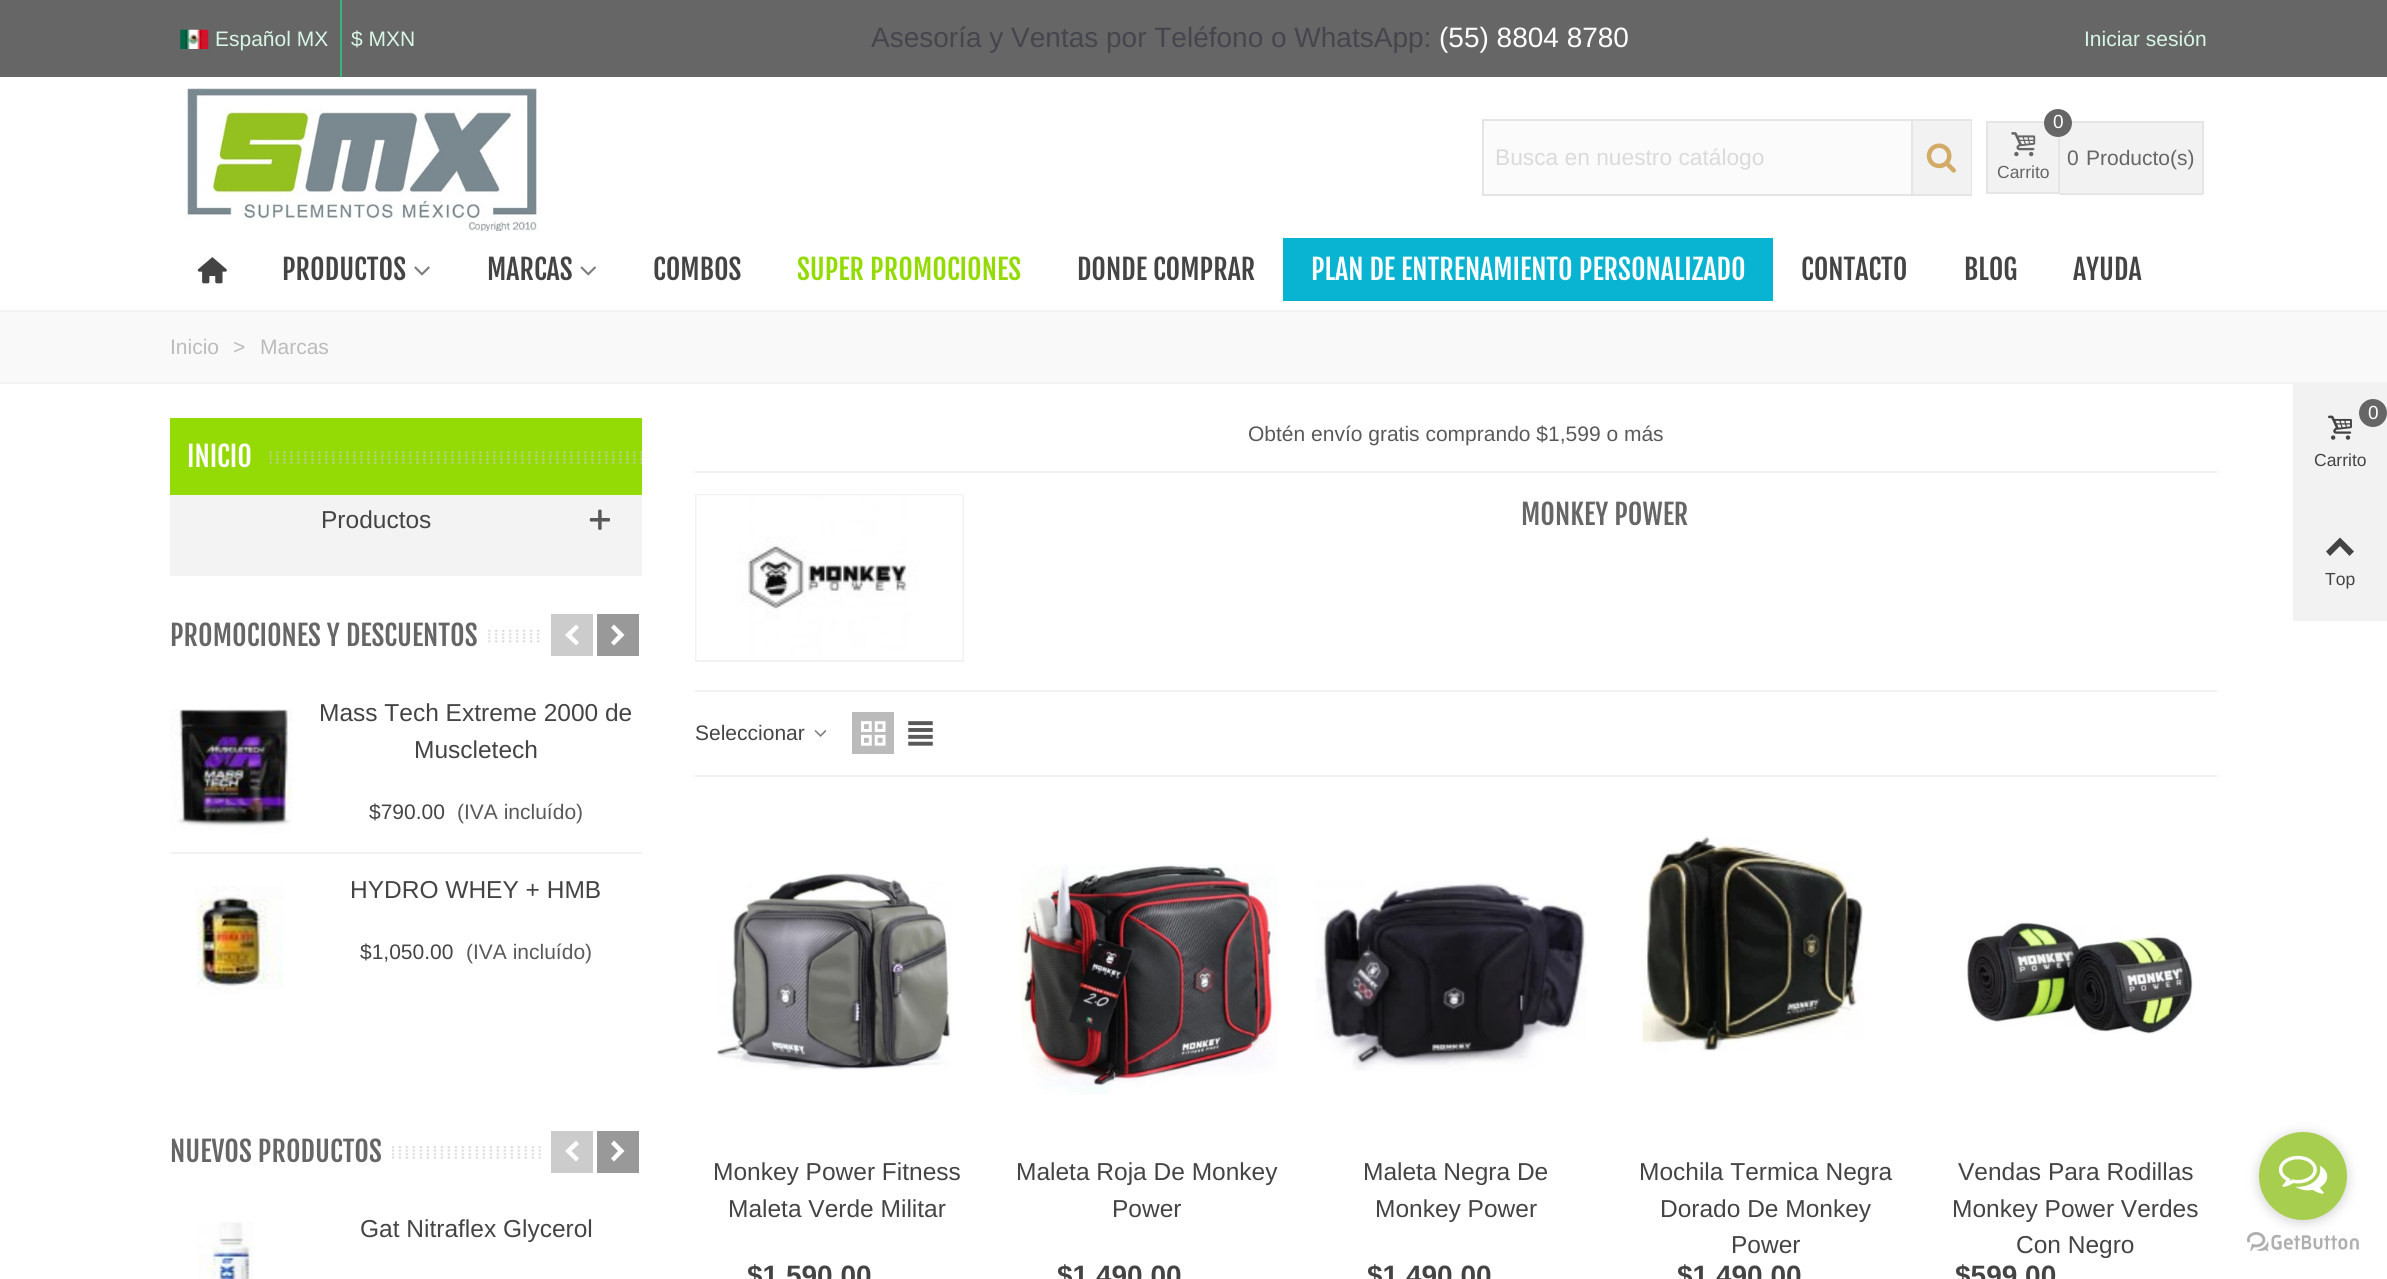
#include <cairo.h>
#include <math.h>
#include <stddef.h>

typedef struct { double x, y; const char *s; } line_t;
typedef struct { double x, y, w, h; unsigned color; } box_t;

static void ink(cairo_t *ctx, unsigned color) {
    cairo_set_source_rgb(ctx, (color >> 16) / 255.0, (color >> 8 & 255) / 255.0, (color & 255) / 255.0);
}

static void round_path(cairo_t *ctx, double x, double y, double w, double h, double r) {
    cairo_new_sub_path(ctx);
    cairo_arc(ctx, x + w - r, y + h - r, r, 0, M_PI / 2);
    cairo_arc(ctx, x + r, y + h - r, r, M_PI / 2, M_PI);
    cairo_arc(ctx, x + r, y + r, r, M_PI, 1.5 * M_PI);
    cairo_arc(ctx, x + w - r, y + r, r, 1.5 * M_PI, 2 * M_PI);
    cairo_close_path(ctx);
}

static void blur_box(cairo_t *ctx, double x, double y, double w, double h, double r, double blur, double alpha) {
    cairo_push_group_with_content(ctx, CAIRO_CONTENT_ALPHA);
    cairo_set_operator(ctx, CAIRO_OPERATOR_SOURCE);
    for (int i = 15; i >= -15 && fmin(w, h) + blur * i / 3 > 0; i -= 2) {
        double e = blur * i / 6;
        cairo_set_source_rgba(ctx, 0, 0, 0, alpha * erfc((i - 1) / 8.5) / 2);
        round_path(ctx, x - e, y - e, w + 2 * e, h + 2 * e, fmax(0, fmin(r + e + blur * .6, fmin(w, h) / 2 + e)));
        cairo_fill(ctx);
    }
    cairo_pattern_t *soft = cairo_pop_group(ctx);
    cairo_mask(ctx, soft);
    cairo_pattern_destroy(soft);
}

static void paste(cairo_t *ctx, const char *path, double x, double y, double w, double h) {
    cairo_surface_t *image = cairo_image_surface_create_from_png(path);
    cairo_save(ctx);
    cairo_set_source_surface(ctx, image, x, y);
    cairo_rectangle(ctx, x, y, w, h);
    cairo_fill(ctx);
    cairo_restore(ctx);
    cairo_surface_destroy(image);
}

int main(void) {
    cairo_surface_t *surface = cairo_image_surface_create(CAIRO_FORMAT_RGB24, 2387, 1279);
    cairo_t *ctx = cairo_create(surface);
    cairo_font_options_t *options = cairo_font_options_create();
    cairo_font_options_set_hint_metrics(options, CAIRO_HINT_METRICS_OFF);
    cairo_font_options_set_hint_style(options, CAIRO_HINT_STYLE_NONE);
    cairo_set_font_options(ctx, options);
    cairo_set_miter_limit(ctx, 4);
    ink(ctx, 0xFFFFFF);
    cairo_paint(ctx);
    ink(ctx, 0x666666);
    cairo_rectangle(ctx, 0, 0, 2387, 77);
    cairo_fill(ctx);
    paste(ctx, "media/1.png", 180, 29, 29, 20);
    cairo_select_font_face(ctx, "Liberation Sans", CAIRO_FONT_SLANT_NORMAL, CAIRO_FONT_WEIGHT_NORMAL);
    cairo_set_font_size(ctx, 21);
    ink(ctx, 0xD8F6E6);
    cairo_move_to(ctx, 215, 46);
    cairo_show_text(ctx, "Español MX");
    ink(ctx, 0x3AB47B);
    cairo_rectangle(ctx, 340, 0, 2, 77);
    cairo_fill(ctx);
    ink(ctx, 0xD8F6E6);
    cairo_move_to(ctx, 351, 46);
    cairo_show_text(ctx, "$ MXN");
    cairo_set_font_size(ctx, 28);
    ink(ctx, 0x45454E);
    cairo_move_to(ctx, 871, 47);
    cairo_show_text(ctx, "Asesoría y Ventas por Teléfono o WhatsApp:");
    ink(ctx, 0xFFFFFF);
    cairo_move_to(ctx, 1439, 47);
    cairo_show_text(ctx, "(55) 8804 8780");
    cairo_set_font_size(ctx, 21);
    ink(ctx, 0xD8F6E6);
    cairo_move_to(ctx, 2084, 46);
    cairo_show_text(ctx, "Iniciar sesión");
    paste(ctx, "media/2.png", 185, 87, 354, 144);
    cairo_rectangle(ctx, 1483, 120, 488, 75);
    ink(ctx, 0xE5E5E5);
    cairo_stroke(ctx);
    ink(ctx, 0xFBFBFB);
    cairo_rectangle(ctx, 1484, 121, 427, 73);
    cairo_fill(ctx);
    cairo_set_font_size(ctx, 22.75);
    ink(ctx, 0xDADADA);
    cairo_move_to(ctx, 1495, 165);
    cairo_show_text(ctx, "Busca en nuestro catálogo");
    ink(ctx, 0xF2F2F2);
    cairo_rectangle(ctx, 1913, 121, 58, 73);
    cairo_fill(ctx);
    ink(ctx, 0xE5E5E5);
    cairo_rectangle(ctx, 1911, 121, 2, 73);
    cairo_fill(ctx);
    paste(ctx, "media/3.png", 1926, 143, 30, 30);
    ink(ctx, 0xF2F2F2);
    cairo_rectangle(ctx, 1987, 122, 72, 71);
    cairo_fill_preserve(ctx);
    ink(ctx, 0xE5E5E5);
    cairo_stroke(ctx);
    ink(ctx, 0xF2F2F2);
    cairo_rectangle(ctx, 2060, 123, 142, 70);
    cairo_fill(ctx);
    ink(ctx, 0xE5E5E5);
    cairo_rectangle(ctx, 2071, 121, 132, 2);
    cairo_fill(ctx);
    ink(ctx, 0x666666);
    cairo_arc(ctx, 2058, 123, 14, 0, 2 * M_PI);
    cairo_fill(ctx);
    cairo_set_font_size(ctx, 19);
    ink(ctx, 0xFFFFFF);
    cairo_move_to(ctx, 2053, 128);
    cairo_show_text(ctx, "0");
    paste(ctx, "media/4.png", 2011, 132, 25, 25);
    cairo_set_font_size(ctx, 17.5);
    ink(ctx, 0x666666);
    cairo_move_to(ctx, 1997, 178);
    cairo_show_text(ctx, "Carrito");
    ink(ctx, 0xE5E5E5);
    cairo_rectangle(ctx, 2060, 193, 19, 2);
    cairo_fill(ctx);
    cairo_set_font_size(ctx, 21);
    ink(ctx, 0x666666);
    cairo_move_to(ctx, 2067, 165);
    cairo_show_text(ctx, "0");
    ink(ctx, 0xE5E5E5);
    cairo_rectangle(ctx, 2202, 121, 2, 73);
    cairo_fill(ctx);
    cairo_rectangle(ctx, 2079, 193, 124, 2);
    cairo_fill(ctx);
    ink(ctx, 0x666666);
    cairo_move_to(ctx, 2086, 165);
    cairo_show_text(ctx, "Producto(s)");
    paste(ctx, "media/5.png", 197, 257, 30, 27);
    cairo_select_font_face(ctx, "Fjalla One", CAIRO_FONT_SLANT_NORMAL, CAIRO_FONT_WEIGHT_NORMAL);
    cairo_set_font_size(ctx, 28);
    ink(ctx, 0x444444);
    cairo_move_to(ctx, 282, 280);
    cairo_show_text(ctx, "PRODUCTOS");
    paste(ctx, "media/6.png", 414, 266, 16, 10);
    cairo_move_to(ctx, 487, 280);
    cairo_show_text(ctx, "MARCAS");
    paste(ctx, "media/7.png", 580, 266, 16, 10);
    cairo_move_to(ctx, 653, 280);
    cairo_show_text(ctx, "COMBOS");
    ink(ctx, 0x94DB05);
    cairo_move_to(ctx, 797, 280);
    cairo_show_text(ctx, "SUPER PROMOCIONES");
    ink(ctx, 0x444444);
    cairo_move_to(ctx, 1077, 280);
    cairo_show_text(ctx, "DONDE COMPRAR");
    ink(ctx, 0x09B3D2);
    cairo_rectangle(ctx, 1283, 238, 490, 63);
    cairo_fill(ctx);
    ink(ctx, 0xFFFFFF);
    cairo_move_to(ctx, 1311, 280);
    cairo_show_text(ctx, "PLAN DE ENTRENAMIENTO PERSONALIZADO");
    ink(ctx, 0x444444);
    {
        static const line_t items[] = {
            {1801, 280, "CONTACTO"},
            {1964, 280, "BLOG"},
            {2073, 280, "AYUDA"},
        };
        for (size_t i = 0; i < sizeof items / sizeof *items; i++) {
            cairo_move_to(ctx, items[i].x, items[i].y);
            cairo_show_text(ctx, items[i].s);
        }
    }
    {
        static const box_t items[] = {
            {0, 312, 2387, 70, 0xF9F9F9},
            {0, 310, 2387, 2, 0xF3F3F3},
            {0, 382, 2387, 2, 0xF3F3F3},
        };
        for (size_t i = 0; i < sizeof items / sizeof *items; i++) {
            ink(ctx, items[i].color);
            cairo_rectangle(ctx, items[i].x, items[i].y, items[i].w, items[i].h);
            cairo_fill(ctx);
        }
    }
    cairo_select_font_face(ctx, "Liberation Sans", CAIRO_FONT_SLANT_NORMAL, CAIRO_FONT_WEIGHT_NORMAL);
    cairo_set_font_size(ctx, 21);
    ink(ctx, 0xBBBBBB);
    {
        static const line_t items[] = {
            {170, 354, "Inicio"},
            {233, 354, ">"},
            {260, 354, "Marcas"},
        };
        for (size_t i = 0; i < sizeof items / sizeof *items; i++) {
            cairo_move_to(ctx, items[i].x, items[i].y);
            cairo_show_text(ctx, items[i].s);
        }
    }
    ink(ctx, 0x94DB05);
    cairo_rectangle(ctx, 170, 418, 472, 77);
    cairo_fill(ctx);
    cairo_select_font_face(ctx, "Fjalla One", CAIRO_FONT_SLANT_NORMAL, CAIRO_FONT_WEIGHT_NORMAL);
    cairo_set_font_size(ctx, 28);
    ink(ctx, 0xFFFFFF);
    cairo_move_to(ctx, 187, 467);
    cairo_show_text(ctx, "INICIO");
    paste(ctx, "media/8.png", 269, 451, 374, 13);
    ink(ctx, 0xF3F3F3);
    cairo_rectangle(ctx, 170, 495, 472, 81);
    cairo_fill(ctx);
    cairo_select_font_face(ctx, "Liberation Sans", CAIRO_FONT_SLANT_NORMAL, CAIRO_FONT_WEIGHT_NORMAL);
    cairo_set_font_size(ctx, 24.5);
    ink(ctx, 0x444444);
    cairo_move_to(ctx, 321, 528);
    cairo_show_text(ctx, "Productos");
    paste(ctx, "media/9.png", 589, 509, 21, 21);
    cairo_select_font_face(ctx, "Fjalla One", CAIRO_FONT_SLANT_NORMAL, CAIRO_FONT_WEIGHT_NORMAL);
    cairo_set_font_size(ctx, 28);
    ink(ctx, 0x666666);
    cairo_move_to(ctx, 170, 646);
    cairo_show_text(ctx, "PROMOCIONES Y DESCUENTOS");
    paste(ctx, "media/10.png", 488, 630, 52, 13);
    ink(ctx, 0xCCCCCC);
    cairo_rectangle(ctx, 551, 614, 42, 42);
    cairo_fill(ctx);
    ink(ctx, 0xFFFFFF);
    cairo_new_path(ctx);
    cairo_move_to(ctx, 565, 635);
    cairo_line_to(ctx, 576, 624.5);
    cairo_line_to(ctx, 579, 627.5);
    cairo_line_to(ctx, 571.5, 635);
    cairo_line_to(ctx, 579, 642.5);
    cairo_line_to(ctx, 576, 645.5);
    cairo_close_path(ctx);
    cairo_fill(ctx);
    ink(ctx, 0x999999);
    cairo_rectangle(ctx, 597, 614, 42, 42);
    cairo_fill(ctx);
    ink(ctx, 0xFFFFFF);
    cairo_new_path(ctx);
    cairo_move_to(ctx, 611, 642.5);
    cairo_line_to(ctx, 618, 635);
    cairo_line_to(ctx, 611, 627.5);
    cairo_line_to(ctx, 614, 624.5);
    cairo_line_to(ctx, 624.5, 635);
    cairo_line_to(ctx, 614, 645.5);
    cairo_close_path(ctx);
    cairo_fill(ctx);
    ink(ctx, 0xF2F2F2);
    cairo_rectangle(ctx, 170, 852, 472, 2);
    cairo_fill(ctx);
    paste(ctx, "media/11.png", 170, 709, 123, 125);
    cairo_select_font_face(ctx, "Liberation Sans", CAIRO_FONT_SLANT_NORMAL, CAIRO_FONT_WEIGHT_NORMAL);
    cairo_set_font_size(ctx, 24.5);
    ink(ctx, 0x444444);
    cairo_move_to(ctx, 319, 721);
    cairo_show_text(ctx, "Mass Tech Extreme 2000 de");
    cairo_move_to(ctx, 414, 758);
    cairo_show_text(ctx, "Muscletech");
    cairo_set_font_size(ctx, 21);
    cairo_move_to(ctx, 369, 819);
    cairo_show_text(ctx, "$790.00");
    ink(ctx, 0x595959);
    cairo_move_to(ctx, 457, 819);
    cairo_show_text(ctx, "(IVA incluído)");
    paste(ctx, "media/12.png", 196, 886, 88, 108);
    cairo_set_font_size(ctx, 24.5);
    ink(ctx, 0x444444);
    cairo_move_to(ctx, 350, 898);
    cairo_show_text(ctx, "HYDRO WHEY + HMB");
    cairo_set_font_size(ctx, 21);
    cairo_move_to(ctx, 360, 959);
    cairo_show_text(ctx, "$1,050.00");
    ink(ctx, 0x595959);
    cairo_move_to(ctx, 466, 959);
    cairo_show_text(ctx, "(IVA incluído)");
    cairo_select_font_face(ctx, "Fjalla One", CAIRO_FONT_SLANT_NORMAL, CAIRO_FONT_WEIGHT_NORMAL);
    cairo_set_font_size(ctx, 28);
    ink(ctx, 0x666666);
    cairo_move_to(ctx, 170, 1162);
    cairo_show_text(ctx, "NUEVOS PRODUCTOS");
    paste(ctx, "media/13.png", 392, 1146, 149, 13);
    ink(ctx, 0xCCCCCC);
    cairo_rectangle(ctx, 551, 1131, 42, 42);
    cairo_fill(ctx);
    ink(ctx, 0xFFFFFF);
    cairo_new_path(ctx);
    cairo_move_to(ctx, 565, 1151);
    cairo_line_to(ctx, 576, 1140.5);
    cairo_line_to(ctx, 579, 1144);
    cairo_line_to(ctx, 571.5, 1151);
    cairo_line_to(ctx, 579, 1158.5);
    cairo_line_to(ctx, 576, 1161.5);
    cairo_close_path(ctx);
    cairo_fill(ctx);
    ink(ctx, 0x999999);
    cairo_rectangle(ctx, 597, 1131, 42, 42);
    cairo_fill(ctx);
    ink(ctx, 0xFFFFFF);
    cairo_new_path(ctx);
    cairo_move_to(ctx, 611, 1158.5);
    cairo_line_to(ctx, 618, 1151);
    cairo_line_to(ctx, 611, 1144);
    cairo_line_to(ctx, 614, 1140.5);
    cairo_line_to(ctx, 624.5, 1151);
    cairo_line_to(ctx, 614, 1161.5);
    cairo_close_path(ctx);
    cairo_fill(ctx);
    paste(ctx, "media/14.png", 197, 1222, 57, 57);
    cairo_select_font_face(ctx, "Liberation Sans", CAIRO_FONT_SLANT_NORMAL, CAIRO_FONT_WEIGHT_NORMAL);
    cairo_set_font_size(ctx, 24.5);
    ink(ctx, 0x444444);
    cairo_move_to(ctx, 360, 1237);
    cairo_show_text(ctx, "Gat Nitraflex Glycerol");
    cairo_set_font_size(ctx, 21);
    ink(ctx, 0x595959);
    cairo_move_to(ctx, 1248, 441);
    cairo_show_text(ctx, "Obtén envío gratis comprando $1,599 o más");
    ink(ctx, 0xF2F2F2);
    cairo_rectangle(ctx, 695, 471, 1522, 2);
    cairo_fill(ctx);
    cairo_rectangle(ctx, 696, 495, 267, 166);
    cairo_stroke(ctx);
    paste(ctx, "media/15.png", 696, 495, 267, 165);
    cairo_select_font_face(ctx, "Fjalla One", CAIRO_FONT_SLANT_NORMAL, CAIRO_FONT_WEIGHT_NORMAL);
    cairo_set_font_size(ctx, 28);
    ink(ctx, 0x666666);
    cairo_move_to(ctx, 1521, 525);
    cairo_show_text(ctx, "MONKEY POWER");
    ink(ctx, 0xF2F2F2);
    cairo_rectangle(ctx, 695, 690, 1522, 2);
    cairo_fill(ctx);
    cairo_rectangle(ctx, 695, 775, 1522, 2);
    cairo_fill(ctx);
    cairo_select_font_face(ctx, "Liberation Sans", CAIRO_FONT_SLANT_NORMAL, CAIRO_FONT_WEIGHT_NORMAL);
    cairo_set_font_size(ctx, 21);
    ink(ctx, 0x444444);
    cairo_move_to(ctx, 695, 740);
    cairo_show_text(ctx, "Seleccionar");
    paste(ctx, "media/16.png", 814, 730, 13, 7);
    ink(ctx, 0xBBBBBB);
    cairo_rectangle(ctx, 852, 712, 42, 42);
    cairo_fill(ctx);
    paste(ctx, "media/17.png", 861, 721, 25, 25);
    paste(ctx, "media/18.png", 908, 721, 25, 25);
    paste(ctx, "media/19.png", 716, 873, 236, 197);
    cairo_set_font_size(ctx, 24.5);
    ink(ctx, 0x444444);
    cairo_move_to(ctx, 713, 1180);
    cairo_show_text(ctx, "Monkey Power Fitness");
    cairo_move_to(ctx, 728, 1217);
    cairo_show_text(ctx, "Maleta Verde Militar");
    cairo_select_font_face(ctx, "Liberation Sans", CAIRO_FONT_SLANT_NORMAL, CAIRO_FONT_WEIGHT_BOLD);
    cairo_set_font_size(ctx, 28);
    cairo_move_to(ctx, 747, 1285);
    cairo_show_text(ctx, "$1,590.00");
    paste(ctx, "media/20.png", 1020, 864, 258, 231);
    cairo_select_font_face(ctx, "Liberation Sans", CAIRO_FONT_SLANT_NORMAL, CAIRO_FONT_WEIGHT_NORMAL);
    cairo_set_font_size(ctx, 24.5);
    cairo_move_to(ctx, 1016, 1180);
    cairo_show_text(ctx, "Maleta Roja De Monkey");
    cairo_move_to(ctx, 1112, 1217);
    cairo_show_text(ctx, "Power");
    cairo_select_font_face(ctx, "Liberation Sans", CAIRO_FONT_SLANT_NORMAL, CAIRO_FONT_WEIGHT_BOLD);
    cairo_set_font_size(ctx, 28);
    cairo_move_to(ctx, 1057, 1285);
    cairo_show_text(ctx, "$1,490.00");
    paste(ctx, "media/21.png", 1315, 881, 272, 190);
    cairo_select_font_face(ctx, "Liberation Sans", CAIRO_FONT_SLANT_NORMAL, CAIRO_FONT_WEIGHT_NORMAL);
    cairo_set_font_size(ctx, 24.5);
    cairo_move_to(ctx, 1363, 1180);
    cairo_show_text(ctx, "Maleta Negra De");
    cairo_move_to(ctx, 1375, 1217);
    cairo_show_text(ctx, "Monkey Power");
    cairo_select_font_face(ctx, "Liberation Sans", CAIRO_FONT_SLANT_NORMAL, CAIRO_FONT_WEIGHT_BOLD);
    cairo_set_font_size(ctx, 28);
    cairo_move_to(ctx, 1367, 1285);
    cairo_show_text(ctx, "$1,490.00");
    paste(ctx, "media/22.png", 1642, 836, 221, 216);
    cairo_select_font_face(ctx, "Liberation Sans", CAIRO_FONT_SLANT_NORMAL, CAIRO_FONT_WEIGHT_NORMAL);
    cairo_set_font_size(ctx, 24.5);
    {
        static const line_t items[] = {
            {1639, 1180, "Mochila Termica Negra"},
            {1660, 1217, "Dorado De Monkey"},
            {1731, 1253, "Power"},
        };
        for (size_t i = 0; i < sizeof items / sizeof *items; i++) {
            cairo_move_to(ctx, items[i].x, items[i].y);
            cairo_show_text(ctx, items[i].s);
        }
    }
    cairo_select_font_face(ctx, "Liberation Sans", CAIRO_FONT_SLANT_NORMAL, CAIRO_FONT_WEIGHT_BOLD);
    cairo_set_font_size(ctx, 28);
    cairo_move_to(ctx, 1677, 1285);
    cairo_show_text(ctx, "$1,490.00");
    paste(ctx, "media/23.png", 1966, 922, 227, 112);
    cairo_select_font_face(ctx, "Liberation Sans", CAIRO_FONT_SLANT_NORMAL, CAIRO_FONT_WEIGHT_NORMAL);
    cairo_set_font_size(ctx, 24.5);
    {
        static const line_t items[] = {
            {1958, 1180, "Vendas Para Rodillas"},
            {1952, 1217, "Monkey Power Verdes"},
            {2016, 1253, "Con Negro"},
        };
        for (size_t i = 0; i < sizeof items / sizeof *items; i++) {
            cairo_move_to(ctx, items[i].x, items[i].y);
            cairo_show_text(ctx, items[i].s);
        }
    }
    cairo_select_font_face(ctx, "Liberation Sans", CAIRO_FONT_SLANT_NORMAL, CAIRO_FONT_WEIGHT_BOLD);
    cairo_set_font_size(ctx, 28);
    cairo_move_to(ctx, 1955, 1285);
    cairo_show_text(ctx, "$599.00");
    ink(ctx, 0xF2F2F2);
    cairo_rectangle(ctx, 2293, 384, 94, 237);
    cairo_fill(ctx);
    ink(ctx, 0x666666);
    cairo_arc(ctx, 2373, 413, 14, 0, 2 * M_PI);
    cairo_fill(ctx);
    cairo_select_font_face(ctx, "Liberation Sans", CAIRO_FONT_SLANT_NORMAL, CAIRO_FONT_WEIGHT_NORMAL);
    cairo_set_font_size(ctx, 19);
    ink(ctx, 0xFFFFFF);
    cairo_move_to(ctx, 2368, 419);
    cairo_show_text(ctx, "0");
    paste(ctx, "media/24.png", 2328, 415, 24, 25);
    cairo_set_font_size(ctx, 17.5);
    ink(ctx, 0x444444);
    cairo_move_to(ctx, 2314, 466);
    cairo_show_text(ctx, "Carrito");
    cairo_new_path(ctx);
    cairo_move_to(ctx, 2326, 551.5);
    cairo_line_to(ctx, 2340, 537.5);
    cairo_line_to(ctx, 2354, 551.5);
    cairo_line_to(ctx, 2349.5, 556);
    cairo_line_to(ctx, 2340, 546);
    cairo_line_to(ctx, 2330, 556);
    cairo_close_path(ctx);
    cairo_fill(ctx);
    cairo_move_to(ctx, 2325, 585);
    cairo_show_text(ctx, "Top");
    paste(ctx, "media/26.png", 2247, 1232, 112, 19);
    ink(ctx, 0x888888);
    blur_box(ctx, 2259, 1134, 88, 88, 44, 6, 0.4);
    ink(ctx, 0xA8CE50);
    cairo_arc(ctx, 2303, 1176, 44, 0, 2 * M_PI);
    cairo_fill(ctx);
    paste(ctx, "media/25.png", 2278, 1155, 50, 39);
    cairo_surface_write_to_png(surface, "image.png");
    cairo_font_options_destroy(options);
    cairo_destroy(ctx);
    cairo_surface_destroy(surface);
    return 0;
}
